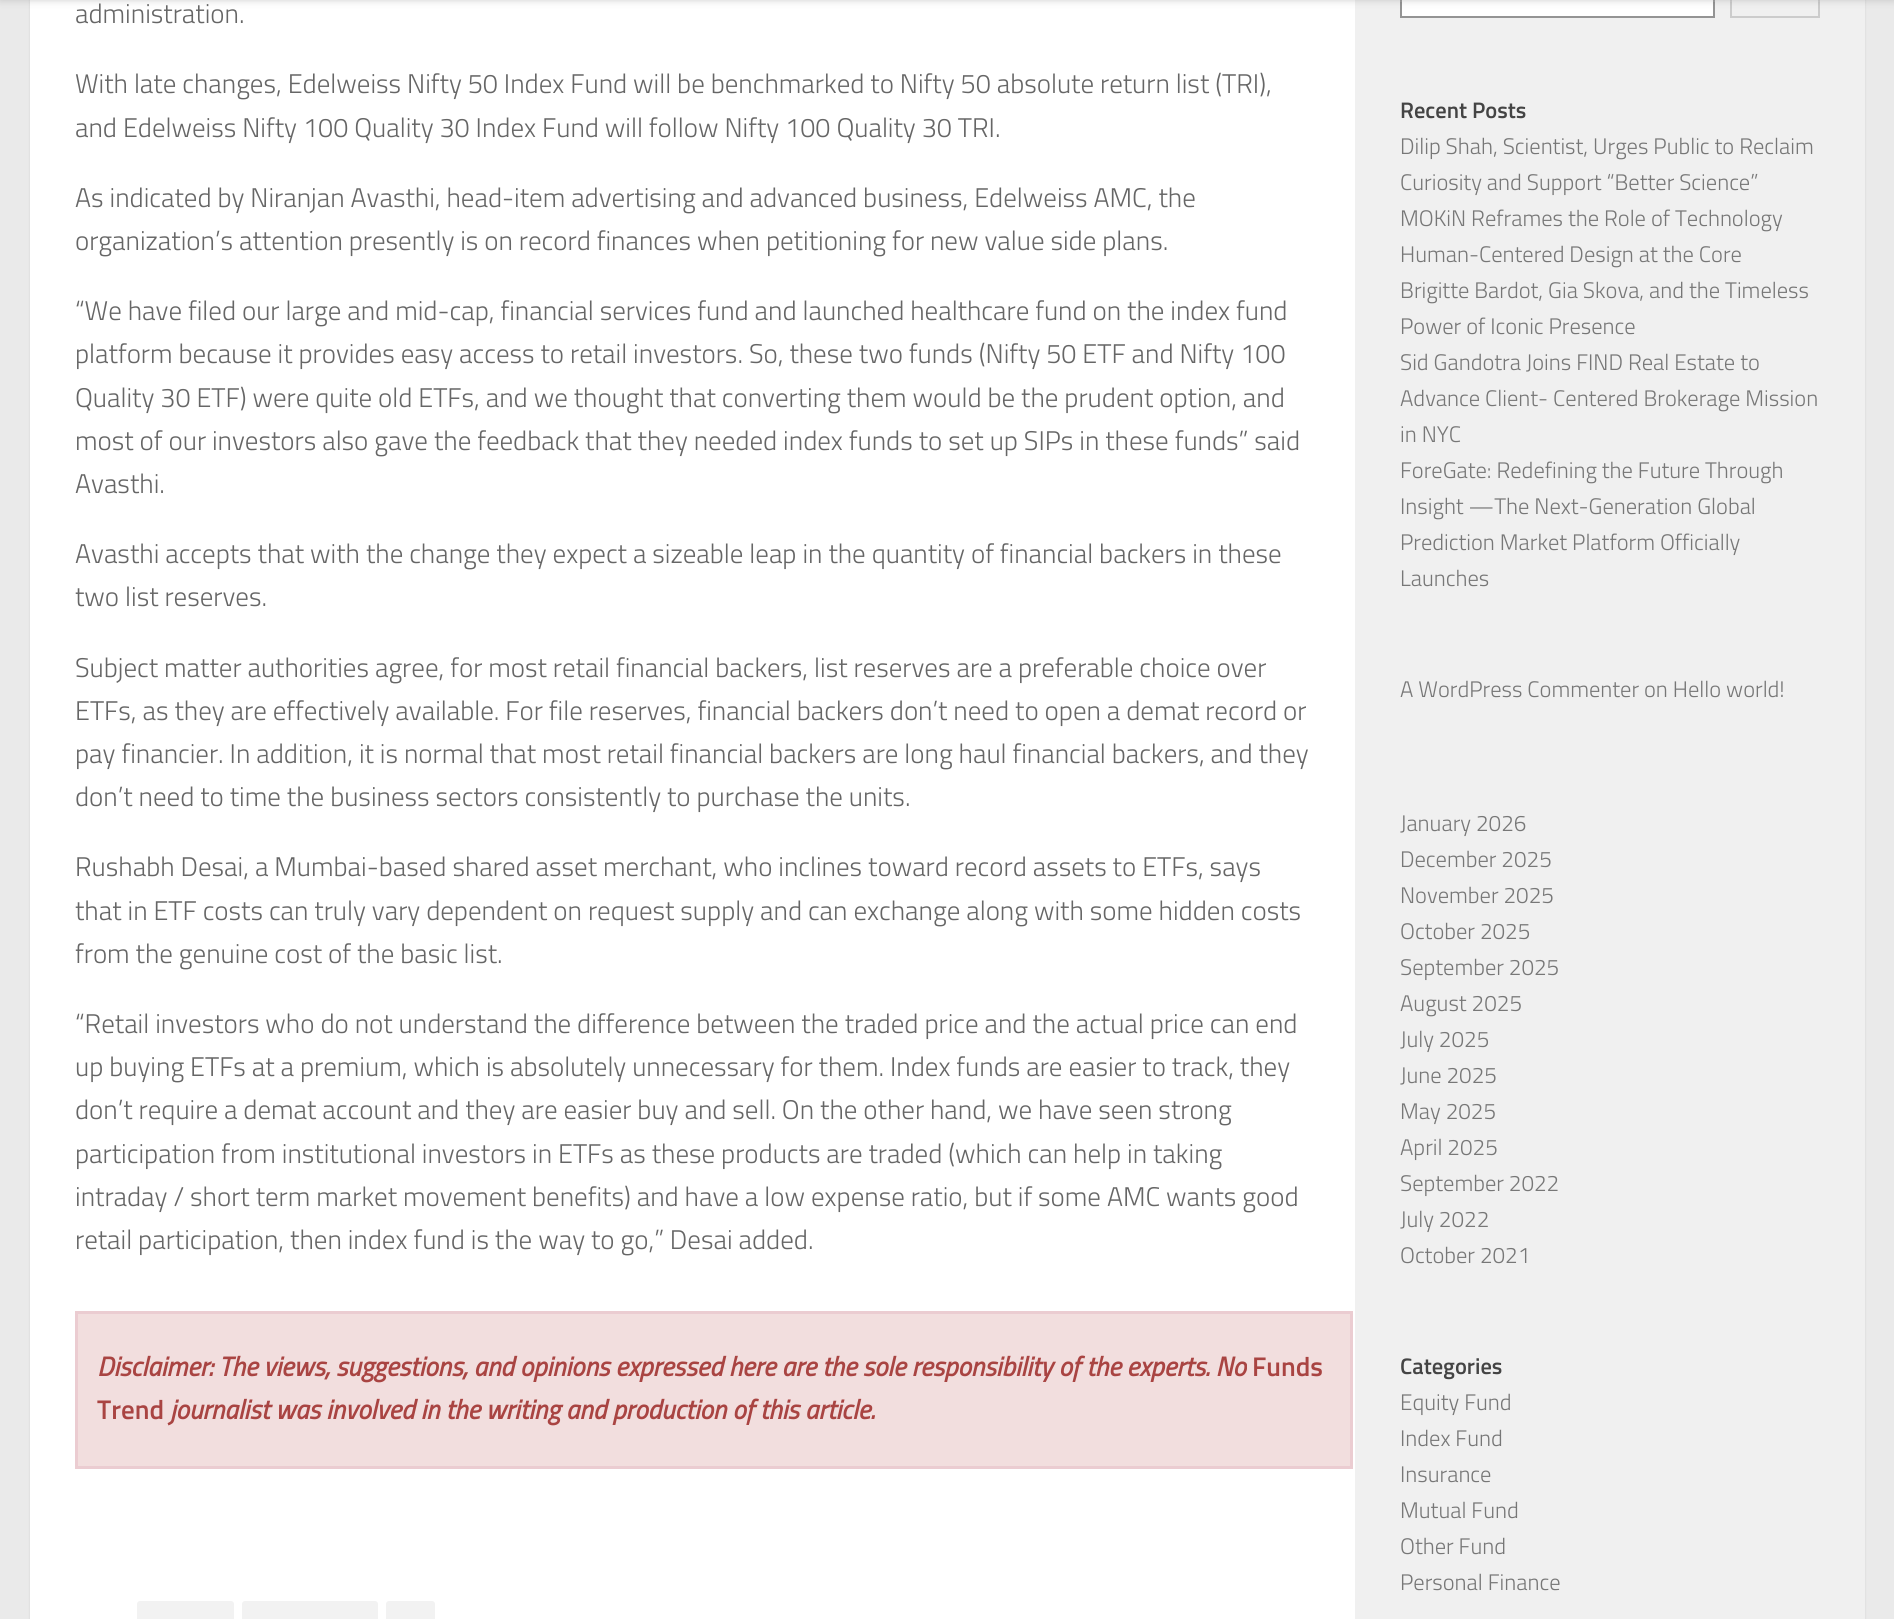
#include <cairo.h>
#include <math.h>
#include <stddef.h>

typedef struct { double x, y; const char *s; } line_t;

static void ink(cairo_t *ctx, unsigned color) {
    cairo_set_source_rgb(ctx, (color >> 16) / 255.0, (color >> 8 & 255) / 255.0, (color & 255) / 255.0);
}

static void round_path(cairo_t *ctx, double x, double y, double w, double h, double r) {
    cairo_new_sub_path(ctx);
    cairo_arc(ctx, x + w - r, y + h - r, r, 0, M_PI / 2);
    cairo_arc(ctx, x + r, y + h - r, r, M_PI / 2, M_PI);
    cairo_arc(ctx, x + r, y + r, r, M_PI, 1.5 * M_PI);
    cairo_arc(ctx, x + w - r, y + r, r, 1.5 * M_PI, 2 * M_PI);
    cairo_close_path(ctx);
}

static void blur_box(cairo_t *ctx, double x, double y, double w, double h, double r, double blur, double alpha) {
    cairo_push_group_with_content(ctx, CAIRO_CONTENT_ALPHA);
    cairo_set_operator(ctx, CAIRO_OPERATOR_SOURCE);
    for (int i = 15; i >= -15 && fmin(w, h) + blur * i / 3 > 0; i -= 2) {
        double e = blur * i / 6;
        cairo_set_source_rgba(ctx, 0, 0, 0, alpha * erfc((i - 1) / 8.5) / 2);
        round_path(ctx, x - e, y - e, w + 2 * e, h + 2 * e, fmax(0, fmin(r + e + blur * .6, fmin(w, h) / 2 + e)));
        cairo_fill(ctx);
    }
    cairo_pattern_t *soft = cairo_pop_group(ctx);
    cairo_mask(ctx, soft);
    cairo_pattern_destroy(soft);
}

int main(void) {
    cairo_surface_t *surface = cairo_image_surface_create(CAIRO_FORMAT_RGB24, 1894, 1619);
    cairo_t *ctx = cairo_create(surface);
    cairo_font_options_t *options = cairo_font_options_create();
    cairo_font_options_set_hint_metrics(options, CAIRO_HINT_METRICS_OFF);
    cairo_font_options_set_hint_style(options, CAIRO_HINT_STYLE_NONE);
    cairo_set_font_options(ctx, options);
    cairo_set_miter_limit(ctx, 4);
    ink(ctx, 0xEAEAEA);
    cairo_paint(ctx);
    ink(ctx, 0x000000);
    blur_box(ctx, 30, -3, 1835, 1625, 0, 1, 0.1);
    ink(ctx, 0xFFFFFF);
    cairo_rectangle(ctx, 30, 0, 1325, 1619);
    cairo_fill(ctx);
    ink(ctx, 0xF0F0F0);
    cairo_rectangle(ctx, 1355, 0, 510, 1619);
    cairo_fill(ctx);
    ink(ctx, 0xFFFFFF);
    cairo_rectangle(ctx, 1401, -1, 313, 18);
    cairo_fill_preserve(ctx);
    ink(ctx, 0x949494);
    cairo_stroke(ctx);
    cairo_rectangle(ctx, 1731, -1, 88, 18);
    ink(ctx, 0xCCCCCC);
    cairo_stroke(ctx);
    cairo_set_source_rgba(ctx, 1, 1, 1, 0.15);
    cairo_new_path(ctx);
    cairo_move_to(ctx, 0, 0);
    cairo_line_to(ctx, 0, 2);
    cairo_line_to(ctx, 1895, 2);
    cairo_line_to(ctx, 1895, -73);
    cairo_line_to(ctx, 1894, -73);
    cairo_line_to(ctx, 1894, 0);
    cairo_close_path(ctx);
    cairo_fill(ctx);
    ink(ctx, 0x000000);
    blur_box(ctx, 0, -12, 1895, 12, 0, 4, 0.2);
    cairo_select_font_face(ctx, "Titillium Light", CAIRO_FONT_SLANT_NORMAL, CAIRO_FONT_WEIGHT_NORMAL);
    cairo_set_font_size(ctx, 27);
    ink(ctx, 0x666666);
    {
        static const line_t items[] = {
            {75, 23, "administration."},
            {75, 93, "With late changes, Edelweiss Nifty 50 Index Fund will be benchmarked to Nifty 50 absolute return list (TRI),"},
            {75, 137, "and Edelweiss Nifty 100 Quality 30 Index Fund will follow Nifty 100 Quality 30 TRI."},
            {75, 207, "As indicated by Niranjan Avasthi, head-item advertising and advanced business, Edelweiss AMC, the"},
            {75, 250, "organization’s attention presently is on record finances when petitioning for new value side plans."},
            {75, 320, "“We have filed our large and mid-cap, financial services fund and launched healthcare fund on the index fund"},
            {75, 363, "platform because it provides easy access to retail investors. So, these two funds (Nifty 50 ETF and Nifty 100"},
            {75, 407, "Quality 30 ETF) were quite old ETFs, and we thought that converting them would be the prudent option, and"},
            {75, 450, "most of our investors also gave the feedback that they needed index funds to set up SIPs in these funds” said"},
            {75, 493, "Avasthi."},
            {75, 563, "Avasthi accepts that with the change they expect a sizeable leap in the quantity of financial backers in these"},
            {75, 606, "two list reserves."},
            {75, 677, "Subject matter authorities agree, for most retail financial backers, list reserves are a preferable choice over"},
            {75, 720, "ETFs, as they are effectively available. For file reserves, financial backers don’t need to open a demat record or"},
            {75, 763, "pay financier. In addition, it is normal that most retail financial backers are long haul financial backers, and they"},
            {75, 806, "don’t need to time the business sectors consistently to purchase the units."},
            {75, 876, "Rushabh Desai, a Mumbai-based shared asset merchant, who inclines toward record assets to ETFs, says"},
            {75, 920, "that in ETF costs can truly vary dependent on request supply and can exchange along with some hidden costs"},
            {75, 963, "from the genuine cost of the basic list."},
            {75, 1033, "“Retail investors who do not understand the difference between the traded price and the actual price can end"},
            {75, 1076, "up buying ETFs at a premium, which is absolutely unnecessary for them. Index funds are easier to track, they"},
            {75, 1119, "don’t require a demat account and they are easier buy and sell. On the other hand, we have seen strong"},
            {75, 1163, "participation from institutional investors in ETFs as these products are traded (which can help in taking"},
            {75, 1206, "intraday / short term market movement benefits) and have a low expense ratio, but if some AMC wants good"},
            {75, 1249, "retail participation, then index fund is the way to go,” Desai added."},
        };
        for (size_t i = 0; i < sizeof items / sizeof *items; i++) {
            cairo_move_to(ctx, items[i].x, items[i].y);
            cairo_show_text(ctx, items[i].s);
        }
    }
    ink(ctx, 0xF2DEDE);
    cairo_rectangle(ctx, 76.5, 1312.5, 1275, 155);
    cairo_fill_preserve(ctx);
    ink(ctx, 0xEBCCD1);
    cairo_set_line_width(ctx, 3);
    cairo_stroke(ctx);
    cairo_select_font_face(ctx, "Titillium", CAIRO_FONT_SLANT_ITALIC, CAIRO_FONT_WEIGHT_BOLD);
    ink(ctx, 0xA94442);
    cairo_move_to(ctx, 97, 1376);
    cairo_show_text(ctx, "Disclaimer: The views, suggestions, and opinions expressed here are the sole responsibility of the experts. No");
    cairo_select_font_face(ctx, "Titillium SemiBold", CAIRO_FONT_SLANT_NORMAL, CAIRO_FONT_WEIGHT_NORMAL);
    cairo_move_to(ctx, 1252, 1376);
    cairo_show_text(ctx, "Funds");
    cairo_move_to(ctx, 97, 1419);
    cairo_show_text(ctx, "Trend");
    cairo_select_font_face(ctx, "Titillium", CAIRO_FONT_SLANT_ITALIC, CAIRO_FONT_WEIGHT_BOLD);
    cairo_move_to(ctx, 170, 1419);
    cairo_show_text(ctx, "journalist was involved in the writing and production of this article.");
    ink(ctx, 0xF2F2F2);
    round_path(ctx, 137, 1601, 97, 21, 3);
    cairo_fill(ctx);
    round_path(ctx, 242, 1601, 136, 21, 3);
    cairo_fill(ctx);
    round_path(ctx, 386, 1601, 49, 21, 3);
    cairo_fill(ctx);
    cairo_select_font_face(ctx, "Titillium SemiBold", CAIRO_FONT_SLANT_NORMAL, CAIRO_FONT_WEIGHT_NORMAL);
    cairo_set_font_size(ctx, 22.5);
    ink(ctx, 0x444444);
    cairo_move_to(ctx, 1400, 118);
    cairo_show_text(ctx, "Recent Posts");
    cairo_select_font_face(ctx, "Titillium Light", CAIRO_FONT_SLANT_NORMAL, CAIRO_FONT_WEIGHT_NORMAL);
    ink(ctx, 0x777777);
    {
        static const line_t items[] = {
            {1400, 154, "Dilip Shah, Scientist, Urges Public to Reclaim"},
            {1400, 190, "Curiosity and Support “Better Science”"},
            {1400, 226, "MOKiN Reframes the Role of Technology"},
            {1400, 262, "Human-Centered Design at the Core"},
            {1400, 298, "Brigitte Bardot, Gia Skova, and the Timeless"},
            {1400, 334, "Power of Iconic Presence"},
            {1400, 370, "Sid Gandotra Joins FIND Real Estate to"},
            {1400, 406, "Advance Client- Centered Brokerage Mission"},
            {1400, 442, "in NYC"},
            {1400, 478, "ForeGate: Redefining the Future Through"},
            {1400, 514, "Insight —The Next-Generation Global"},
            {1400, 550, "Prediction Market Platform Officially"},
            {1400, 586, "Launches"},
            {1400, 697, "A WordPress Commenter on Hello world!"},
            {1400, 831, "January 2026"},
            {1400, 867, "December 2025"},
            {1400, 903, "November 2025"},
            {1400, 939, "October 2025"},
            {1400, 975, "September 2025"},
            {1400, 1011, "August 2025"},
            {1400, 1047, "July 2025"},
            {1400, 1083, "June 2025"},
            {1400, 1119, "May 2025"},
            {1400, 1155, "April 2025"},
            {1400, 1191, "September 2022"},
            {1400, 1227, "July 2022"},
            {1400, 1263, "October 2021"},
        };
        for (size_t i = 0; i < sizeof items / sizeof *items; i++) {
            cairo_move_to(ctx, items[i].x, items[i].y);
            cairo_show_text(ctx, items[i].s);
        }
    }
    cairo_select_font_face(ctx, "Titillium SemiBold", CAIRO_FONT_SLANT_NORMAL, CAIRO_FONT_WEIGHT_NORMAL);
    ink(ctx, 0x444444);
    cairo_move_to(ctx, 1400, 1374);
    cairo_show_text(ctx, "Categories");
    cairo_select_font_face(ctx, "Titillium Light", CAIRO_FONT_SLANT_NORMAL, CAIRO_FONT_WEIGHT_NORMAL);
    ink(ctx, 0x777777);
    {
        static const line_t items[] = {
            {1400, 1410, "Equity Fund"},
            {1400, 1446, "Index Fund"},
            {1400, 1482, "Insurance"},
            {1400, 1518, "Mutual Fund"},
            {1400, 1554, "Other Fund"},
            {1400, 1590, "Personal Finance"},
        };
        for (size_t i = 0; i < sizeof items / sizeof *items; i++) {
            cairo_move_to(ctx, items[i].x, items[i].y);
            cairo_show_text(ctx, items[i].s);
        }
    }
    cairo_surface_write_to_png(surface, "image.png");
    cairo_font_options_destroy(options);
    cairo_destroy(ctx);
    cairo_surface_destroy(surface);
    return 0;
}
